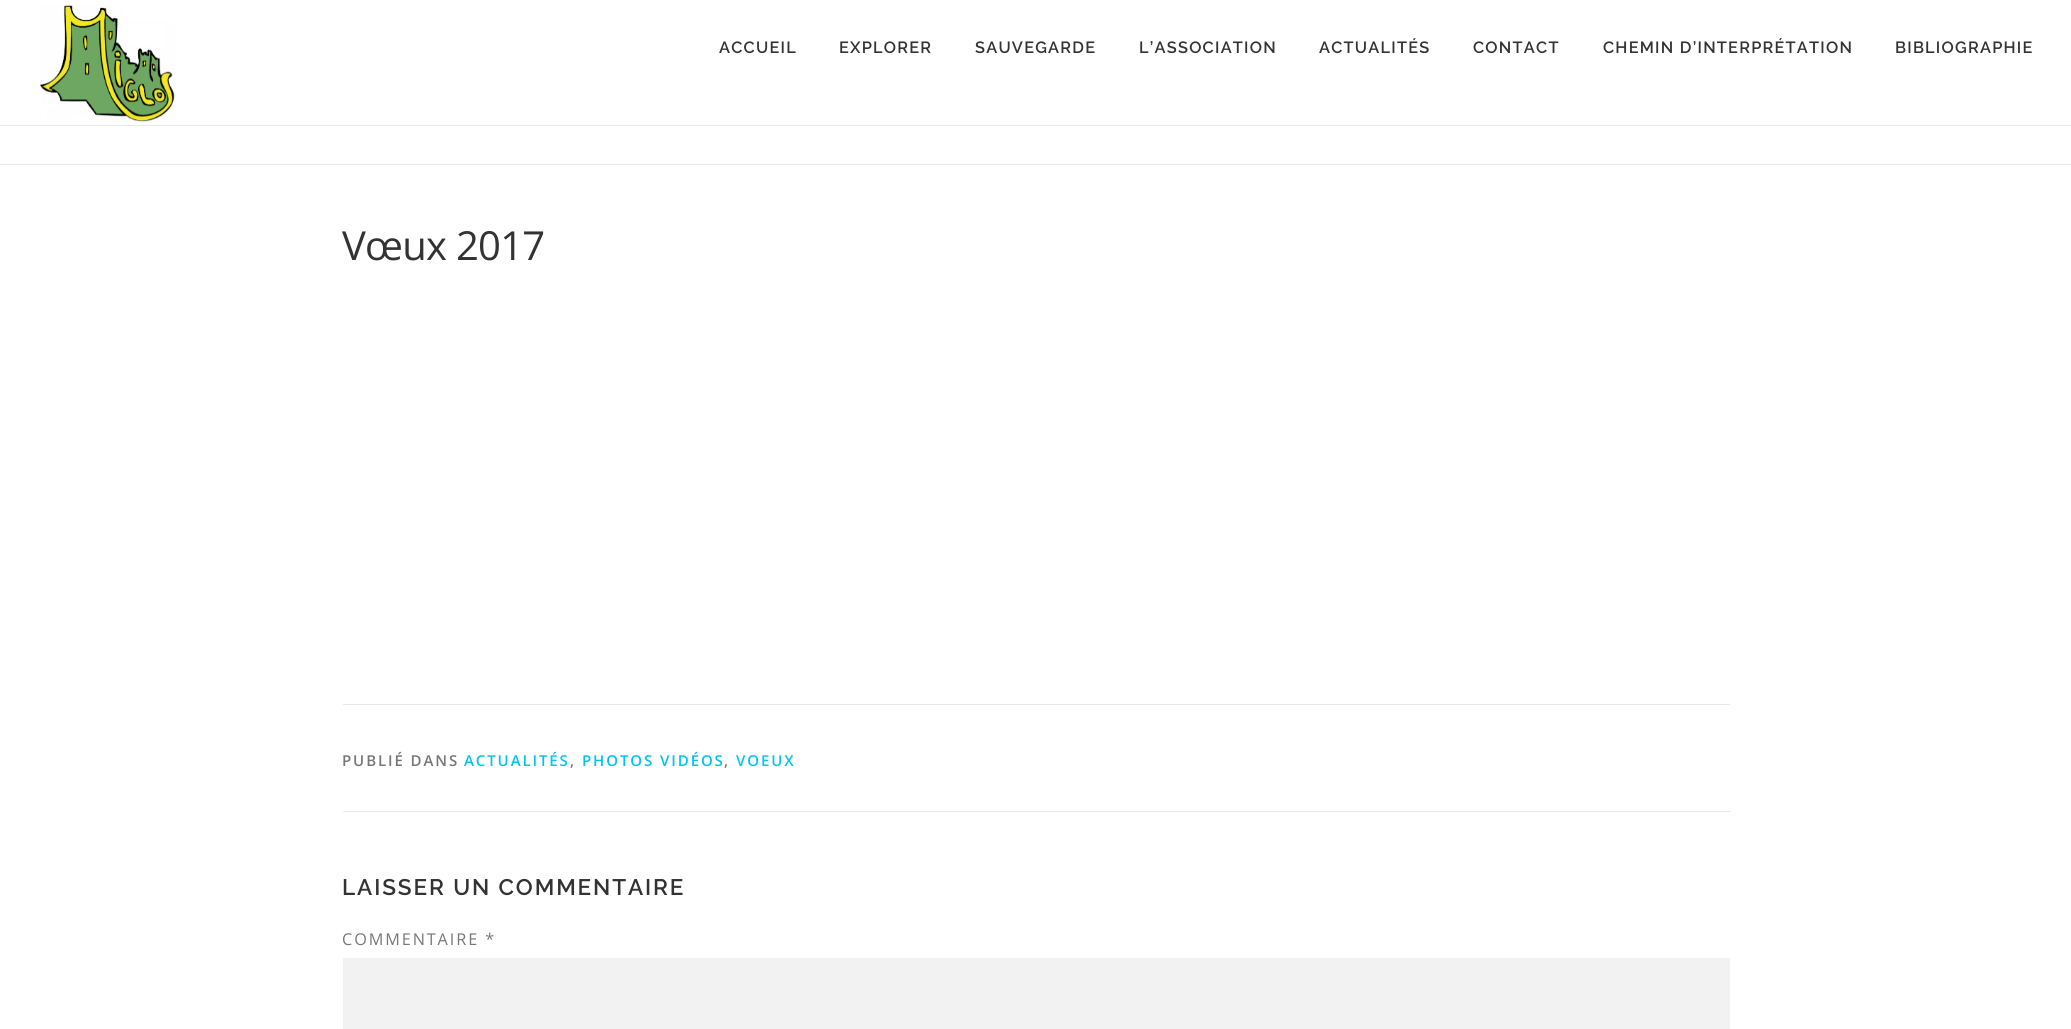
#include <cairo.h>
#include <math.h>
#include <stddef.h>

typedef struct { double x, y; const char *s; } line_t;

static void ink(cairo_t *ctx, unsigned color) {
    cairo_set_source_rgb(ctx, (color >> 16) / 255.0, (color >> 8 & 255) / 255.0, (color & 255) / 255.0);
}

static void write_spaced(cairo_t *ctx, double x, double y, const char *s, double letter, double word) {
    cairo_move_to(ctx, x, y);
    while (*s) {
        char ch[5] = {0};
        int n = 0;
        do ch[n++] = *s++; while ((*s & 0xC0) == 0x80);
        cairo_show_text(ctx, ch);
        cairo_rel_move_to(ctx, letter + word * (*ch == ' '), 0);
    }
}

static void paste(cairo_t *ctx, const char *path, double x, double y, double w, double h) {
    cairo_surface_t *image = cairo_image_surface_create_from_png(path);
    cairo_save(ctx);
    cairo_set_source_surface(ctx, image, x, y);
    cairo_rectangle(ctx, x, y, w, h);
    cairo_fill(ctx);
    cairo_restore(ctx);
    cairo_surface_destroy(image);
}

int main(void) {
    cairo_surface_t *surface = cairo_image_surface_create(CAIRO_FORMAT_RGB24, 2071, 1029);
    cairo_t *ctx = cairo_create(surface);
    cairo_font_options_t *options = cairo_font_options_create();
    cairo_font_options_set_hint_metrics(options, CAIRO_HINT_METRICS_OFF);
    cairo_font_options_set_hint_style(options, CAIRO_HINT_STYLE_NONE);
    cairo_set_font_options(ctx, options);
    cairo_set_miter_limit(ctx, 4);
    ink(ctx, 0xFFFFFF);
    cairo_paint(ctx);
    paste(ctx, "media/1.png", 40, 5, 135, 117);
    cairo_select_font_face(ctx, "Raleway SemiBold", CAIRO_FONT_SLANT_NORMAL, CAIRO_FONT_WEIGHT_NORMAL);
    cairo_set_font_size(ctx, 16.25);
    ink(ctx, 0x333333);
    {
        static const line_t items[] = {
            {719, 53, "ACCUEIL"},
            {839, 53, "EXPLORER"},
            {975, 53, "SAUVEGARDE"},
            {1139, 53, "L’ASSOCIATION"},
            {1319, 53, "ACTUALITÉS"},
            {1473, 53, "CONTACT"},
            {1603, 53, "CHEMIN D’INTERPRÉTATION"},
            {1895, 53, "BIBLIOGRAPHIE"},
        };
        for (size_t i = 0; i < sizeof items / sizeof *items; i++) {
            write_spaced(ctx, items[i].x, items[i].y, items[i].s, 1.25, 0);
        }
    }
    ink(ctx, 0xE9E9E9);
    cairo_rectangle(ctx, 0, 125, 2071, 1);
    cairo_fill(ctx);
    cairo_rectangle(ctx, 0, 164, 2071, 1);
    cairo_fill(ctx);
    cairo_select_font_face(ctx, "Open Sans", CAIRO_FONT_SLANT_NORMAL, CAIRO_FONT_WEIGHT_NORMAL);
    cairo_set_font_size(ctx, 40);
    ink(ctx, 0x333333);
    write_spaced(ctx, 342, 260, "Vœux 2017", -0.75, 0);
    ink(ctx, 0xE9E9E9);
    cairo_rectangle(ctx, 343, 704, 1387, 1);
    cairo_fill(ctx);
    cairo_select_font_face(ctx, "Open Sans SemiBold", CAIRO_FONT_SLANT_NORMAL, CAIRO_FONT_WEIGHT_NORMAL);
    cairo_set_font_size(ctx, 15);
    ink(ctx, 0x777777);
    write_spaced(ctx, 342, 766, "PUBLIÉ DANS", 1.9, 0);
    ink(ctx, 0x03C4EB);
    write_spaced(ctx, 464, 766, "ACTUALITÉS", 1.9, 0);
    ink(ctx, 0x777777);
    write_spaced(ctx, 570, 766, ",", 1.9, 0);
    ink(ctx, 0x03C4EB);
    write_spaced(ctx, 582, 766, "PHOTOS VIDÉOS", 1.9, 0);
    ink(ctx, 0x777777);
    write_spaced(ctx, 724, 766, ",", 1.9, 0);
    ink(ctx, 0x03C4EB);
    write_spaced(ctx, 736, 766, "VOEUX", 1.9, 0);
    ink(ctx, 0xE9E9E9);
    cairo_rectangle(ctx, 343, 811, 1387, 1);
    cairo_fill(ctx);
    cairo_select_font_face(ctx, "Raleway SemiBold", CAIRO_FONT_SLANT_NORMAL, CAIRO_FONT_WEIGHT_NORMAL);
    cairo_set_font_size(ctx, 22.5);
    ink(ctx, 0x333333);
    write_spaced(ctx, 342, 895, "LAISSER UN COMMENTAIRE", 1.9, 0);
    cairo_select_font_face(ctx, "Open Sans", CAIRO_FONT_SLANT_NORMAL, CAIRO_FONT_WEIGHT_NORMAL);
    cairo_set_font_size(ctx, 16.25);
    ink(ctx, 0x777777);
    write_spaced(ctx, 342, 945, "COMMENTAIRE *", 1.9, 0);
    ink(ctx, 0xF2F2F2);
    cairo_rectangle(ctx, 343, 958, 1387, 71);
    cairo_fill(ctx);
    cairo_surface_write_to_png(surface, "image.png");
    cairo_font_options_destroy(options);
    cairo_destroy(ctx);
    cairo_surface_destroy(surface);
    return 0;
}
